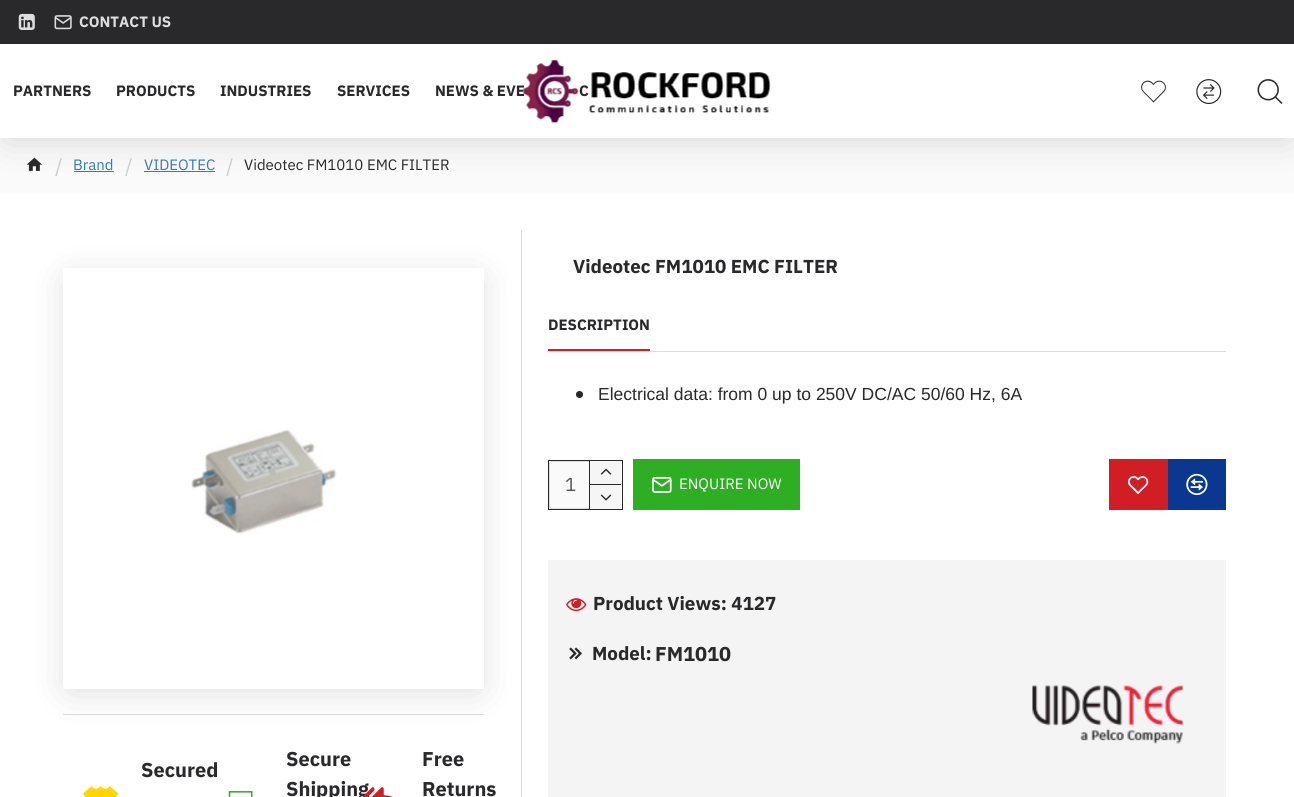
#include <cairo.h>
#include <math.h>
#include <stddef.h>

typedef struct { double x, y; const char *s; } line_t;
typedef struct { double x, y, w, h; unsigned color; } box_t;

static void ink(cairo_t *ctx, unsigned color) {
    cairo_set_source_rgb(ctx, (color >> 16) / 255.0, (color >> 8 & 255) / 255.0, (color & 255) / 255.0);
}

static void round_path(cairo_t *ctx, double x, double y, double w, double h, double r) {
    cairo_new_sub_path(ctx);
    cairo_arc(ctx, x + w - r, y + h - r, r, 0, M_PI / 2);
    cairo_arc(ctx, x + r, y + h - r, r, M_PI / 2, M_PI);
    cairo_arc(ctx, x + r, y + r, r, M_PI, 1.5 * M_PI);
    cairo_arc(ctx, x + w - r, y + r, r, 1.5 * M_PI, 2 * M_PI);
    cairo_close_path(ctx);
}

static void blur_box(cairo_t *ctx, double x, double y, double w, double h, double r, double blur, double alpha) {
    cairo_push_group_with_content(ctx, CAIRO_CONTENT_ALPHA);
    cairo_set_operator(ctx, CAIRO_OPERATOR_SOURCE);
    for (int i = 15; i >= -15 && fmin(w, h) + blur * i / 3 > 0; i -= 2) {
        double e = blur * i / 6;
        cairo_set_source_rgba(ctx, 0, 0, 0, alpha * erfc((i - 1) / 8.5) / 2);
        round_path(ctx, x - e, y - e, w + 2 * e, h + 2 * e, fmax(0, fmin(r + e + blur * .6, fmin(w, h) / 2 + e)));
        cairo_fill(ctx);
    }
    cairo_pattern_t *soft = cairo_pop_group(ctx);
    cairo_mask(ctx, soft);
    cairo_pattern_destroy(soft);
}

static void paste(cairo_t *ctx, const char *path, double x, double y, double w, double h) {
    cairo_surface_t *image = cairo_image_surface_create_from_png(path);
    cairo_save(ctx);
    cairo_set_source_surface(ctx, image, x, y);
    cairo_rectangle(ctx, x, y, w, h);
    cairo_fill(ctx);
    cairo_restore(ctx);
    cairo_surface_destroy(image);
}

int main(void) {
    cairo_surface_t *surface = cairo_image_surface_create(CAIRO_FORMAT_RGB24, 1294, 797);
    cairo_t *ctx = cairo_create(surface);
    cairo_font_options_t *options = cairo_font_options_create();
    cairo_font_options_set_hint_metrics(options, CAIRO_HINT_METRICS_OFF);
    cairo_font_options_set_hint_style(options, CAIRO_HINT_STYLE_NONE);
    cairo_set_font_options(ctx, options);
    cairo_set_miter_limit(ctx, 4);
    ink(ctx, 0xFFFFFF);
    cairo_paint(ctx);
    ink(ctx, 0xFAFAFA);
    cairo_rectangle(ctx, 0, 138, 1294, 55);
    cairo_fill(ctx);
    paste(ctx, "media/7.png", 26, 157, 16, 14);
    ink(ctx, 0x337AB7);
    cairo_rectangle(ctx, 74, 171, 40, 1);
    cairo_fill(ctx);
    cairo_rectangle(ctx, 144, 171, 71, 1);
    cairo_fill(ctx);
    ink(ctx, 0x000000);
    blur_box(ctx, 6, 13, 1283, 125, 0, 19, 0.15);
    ink(ctx, 0xFFFFFF);
    cairo_rectangle(ctx, 0, 44, 1294, 94);
    cairo_fill(ctx);
    ink(ctx, 0x29292B);
    cairo_rectangle(ctx, 0, 0, 1294, 44);
    cairo_fill(ctx);
    paste(ctx, "media/1.png", 18, 13, 17, 17);
    paste(ctx, "media/2.png", 54, 15, 18, 15);
    cairo_select_font_face(ctx, "IBM Plex Sans", CAIRO_FONT_SLANT_NORMAL, CAIRO_FONT_WEIGHT_BOLD);
    cairo_set_font_size(ctx, 15);
    ink(ctx, 0xDDDDDD);
    cairo_move_to(ctx, 79, 27);
    cairo_show_text(ctx, "CONTACT US");
    ink(ctx, 0x29292B);
    {
        static const line_t items[] = {
            {13, 96, "PARTNERS"},
            {116, 96, "PRODUCTS"},
            {220, 96, "INDUSTRIES"},
            {337, 96, "SERVICES"},
            {435, 96, "NEWS & EVE"},
            {579, 96, "C"},
        };
        for (size_t i = 0; i < sizeof items / sizeof *items; i++) {
            cairo_move_to(ctx, items[i].x, items[i].y);
            cairo_show_text(ctx, items[i].s);
        }
    }
    paste(ctx, "media/3.png", 522, 59, 249, 65);
    paste(ctx, "media/4.png", 1141, 80, 25, 23);
    paste(ctx, "media/5.png", 1196, 79, 26, 26);
    paste(ctx, "media/6.png", 1257, 79, 26, 25);
    cairo_select_font_face(ctx, "IBM Plex Sans", CAIRO_FONT_SLANT_NORMAL, CAIRO_FONT_WEIGHT_NORMAL);
    cairo_set_font_size(ctx, 20);
    ink(ctx, 0xCCCCCC);
    cairo_move_to(ctx, 55, 173);
    cairo_show_text(ctx, "/");
    cairo_set_font_size(ctx, 15);
    ink(ctx, 0x337AB7);
    cairo_move_to(ctx, 73, 170);
    cairo_show_text(ctx, "Brand");
    cairo_set_font_size(ctx, 20);
    ink(ctx, 0xCCCCCC);
    cairo_move_to(ctx, 125, 173);
    cairo_show_text(ctx, "/");
    cairo_set_font_size(ctx, 15);
    ink(ctx, 0x337AB7);
    cairo_move_to(ctx, 144, 170);
    cairo_show_text(ctx, "VIDEOTEC");
    cairo_set_font_size(ctx, 20);
    ink(ctx, 0xCCCCCC);
    cairo_move_to(ctx, 226, 173);
    cairo_show_text(ctx, "/");
    cairo_set_font_size(ctx, 15);
    ink(ctx, 0x29292B);
    cairo_move_to(ctx, 244, 170);
    cairo_show_text(ctx, "Videotec FM1010 EMC FILTER");
    cairo_select_font_face(ctx, "IBM Plex Sans", CAIRO_FONT_SLANT_NORMAL, CAIRO_FONT_WEIGHT_BOLD);
    cairo_set_font_size(ctx, 18.75);
    cairo_move_to(ctx, 573, 273);
    cairo_show_text(ctx, "Videotec FM1010 EMC FILTER");
    ink(ctx, 0xDDDDDD);
    cairo_rectangle(ctx, 548, 351, 678, 1);
    cairo_fill(ctx);
    ink(ctx, 0xD01E24);
    cairo_rectangle(ctx, 548, 349, 102, 2);
    cairo_fill(ctx);
    cairo_set_font_size(ctx, 15);
    ink(ctx, 0x29292B);
    cairo_move_to(ctx, 548, 330);
    cairo_show_text(ctx, "DESCRIPTION");
    cairo_new_path(ctx);
    cairo_arc(ctx, 579.5, 394.5, 3.5, 0, 2 * M_PI);
    cairo_fill(ctx);
    cairo_select_font_face(ctx, "Liberation Sans", CAIRO_FONT_SLANT_NORMAL, CAIRO_FONT_WEIGHT_NORMAL);
    cairo_set_font_size(ctx, 17.5);
    cairo_move_to(ctx, 598, 400);
    cairo_show_text(ctx, "Electrical data: from 0 up to 250V DC/AC 50/60 Hz, 6A");
    cairo_rectangle(ctx, 548.5, 460.5, 74, 49);
    cairo_set_line_width(ctx, 1);
    cairo_stroke(ctx);
    ink(ctx, 0xFAFAFA);
    round_path(ctx, 549.5, 461.5, 71, 47, 2);
    cairo_fill_preserve(ctx);
    ink(ctx, 0xDDDDDD);
    cairo_stroke(ctx);
    cairo_select_font_face(ctx, "IBM Plex Sans", CAIRO_FONT_SLANT_NORMAL, CAIRO_FONT_WEIGHT_NORMAL);
    cairo_set_font_size(ctx, 18.75);
    ink(ctx, 0x555555);
    cairo_move_to(ctx, 565, 491);
    cairo_show_text(ctx, "1");
    {
        static const box_t items[] = {
            {589, 461, 1, 48, 0x29292B},
            {590, 461, 31, 23, 0xF5F5F5},
            {590, 484, 31, 1, 0x29292B},
        };
        for (size_t i = 0; i < sizeof items / sizeof *items; i++) {
            ink(ctx, items[i].color);
            cairo_rectangle(ctx, items[i].x, items[i].y, items[i].w, items[i].h);
            cairo_fill(ctx);
        }
    }
    paste(ctx, "media/8.png", 600, 468, 12, 7);
    ink(ctx, 0xF5F5F5);
    cairo_rectangle(ctx, 590, 485, 31, 24);
    cairo_fill(ctx);
    paste(ctx, "media/9.png", 600, 494, 12, 7);
    ink(ctx, 0x2EAF23);
    cairo_rectangle(ctx, 633, 459, 167, 51);
    cairo_fill(ctx);
    paste(ctx, "media/10.png", 652, 476, 20, 17);
    cairo_set_font_size(ctx, 15);
    ink(ctx, 0xFFFFFF);
    cairo_move_to(ctx, 679, 489);
    cairo_show_text(ctx, "ENQUIRE NOW");
    ink(ctx, 0xD01E24);
    cairo_rectangle(ctx, 1109, 459, 59, 51);
    cairo_fill(ctx);
    paste(ctx, "media/11.png", 1127, 476, 22, 18);
    ink(ctx, 0x0A378F);
    cairo_rectangle(ctx, 1168, 459, 58, 51);
    cairo_fill(ctx);
    paste(ctx, "media/12.png", 1186, 473, 22, 23);
    ink(ctx, 0xF4F4F4);
    cairo_rectangle(ctx, 548, 560, 678, 237);
    cairo_fill(ctx);
    paste(ctx, "media/13.png", 566, 598, 21, 14);
    cairo_select_font_face(ctx, "IBM Plex Sans", CAIRO_FONT_SLANT_NORMAL, CAIRO_FONT_WEIGHT_BOLD);
    cairo_set_font_size(ctx, 18.75);
    ink(ctx, 0x29292B);
    cairo_move_to(ctx, 593, 610);
    cairo_show_text(ctx, "Product Views: 4127");
    paste(ctx, "media/14.png", 569, 647, 13, 13);
    cairo_move_to(ctx, 592, 660);
    cairo_show_text(ctx, "Model:");
    cairo_set_font_size(ctx, 20);
    cairo_move_to(ctx, 655, 661);
    cairo_show_text(ctx, "FM1010");
    paste(ctx, "media/15.png", 1032, 685, 151, 59);
    ink(ctx, 0xDDDDDD);
    cairo_rectangle(ctx, 521, 230, 1, 567);
    cairo_fill(ctx);
    cairo_rectangle(ctx, 63, 714, 421, 1);
    cairo_fill(ctx);
    cairo_save(ctx);
    cairo_set_fill_rule(ctx, CAIRO_FILL_RULE_EVEN_ODD);
    cairo_new_path(ctx);
    cairo_move_to(ctx, 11, 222);
    cairo_line_to(ctx, 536, 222);
    cairo_line_to(ctx, 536, 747);
    cairo_line_to(ctx, 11, 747);
    cairo_close_path(ctx);
    cairo_move_to(ctx, 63, 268);
    cairo_line_to(ctx, 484, 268);
    cairo_line_to(ctx, 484, 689);
    cairo_line_to(ctx, 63, 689);
    cairo_close_path(ctx);
    cairo_clip(ctx);
    ink(ctx, 0x000000);
    blur_box(ctx, 69, 280, 409, 409, 0, 19, 0.15);
    cairo_restore(ctx);
    paste(ctx, "media/16.png", 191, 429, 146, 105);
    ink(ctx, 0x29292B);
    cairo_move_to(ctx, 141, 777);
    cairo_show_text(ctx, "Secured");
    paste(ctx, "media/17.png", 82, 786, 37, 11);
    paste(ctx, "media/18.png", 228, 791, 25, 6);
    cairo_move_to(ctx, 286, 766);
    cairo_show_text(ctx, "Secure");
    cairo_move_to(ctx, 286, 796);
    cairo_show_text(ctx, "Shipping");
    paste(ctx, "media/19.png", 362, 787, 31, 10);
    cairo_move_to(ctx, 422, 766);
    cairo_show_text(ctx, "Free");
    cairo_move_to(ctx, 422, 796);
    cairo_show_text(ctx, "Returns");
    cairo_surface_write_to_png(surface, "image.png");
    cairo_font_options_destroy(options);
    cairo_destroy(ctx);
    cairo_surface_destroy(surface);
    return 0;
}
